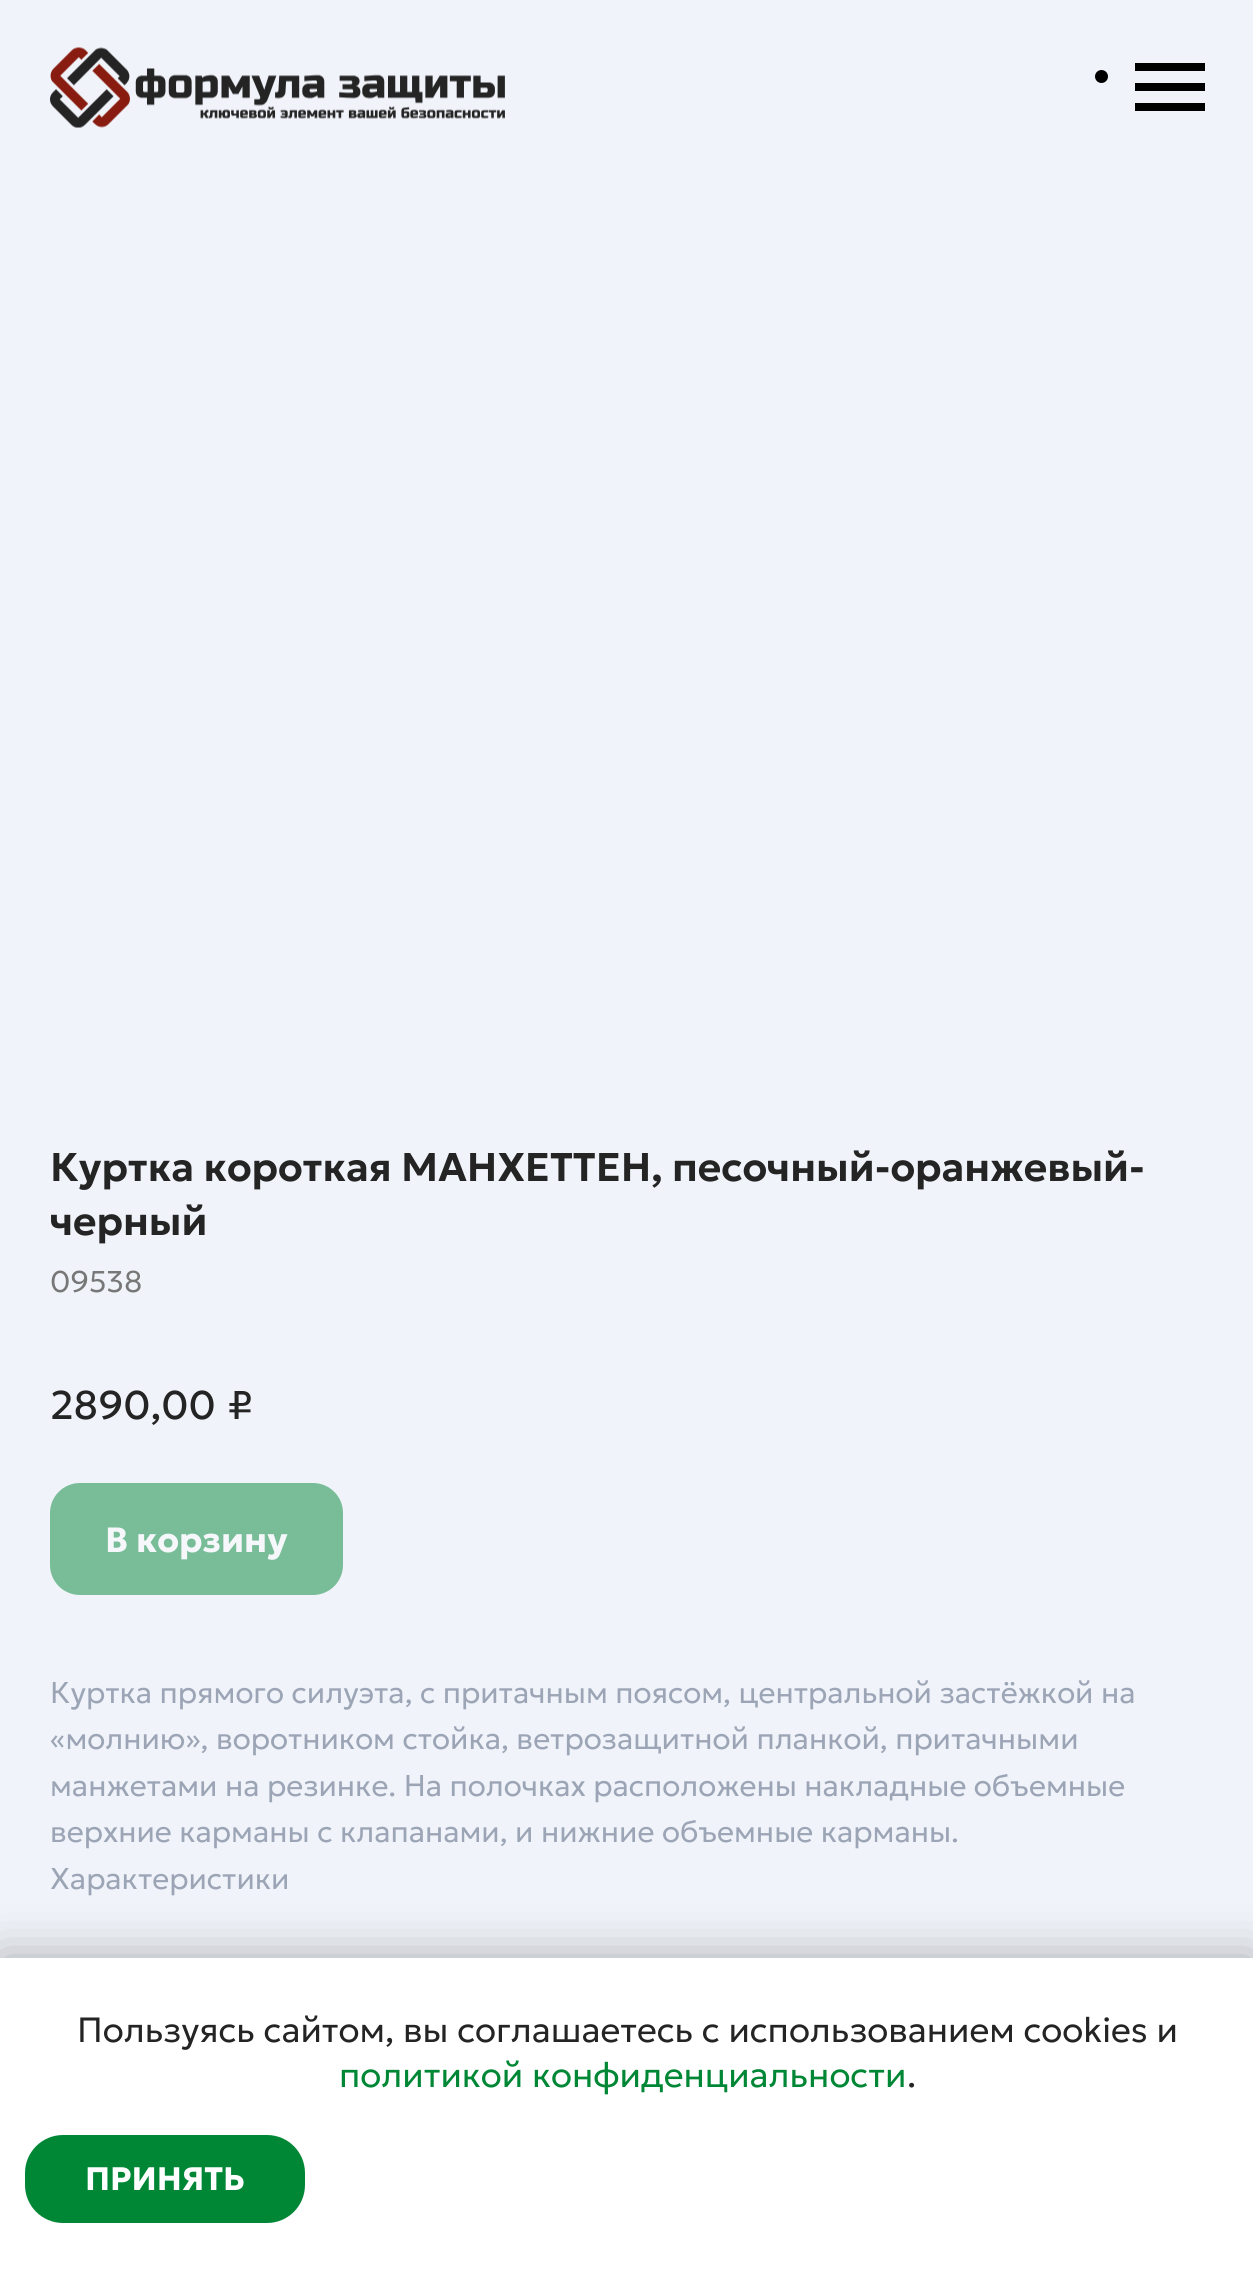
#include <cairo.h>
#include <math.h>
#include <stddef.h>

typedef struct { double x, y; const char *s; } line_t;
typedef struct { double x, y, w, h; unsigned color; } box_t;

static void ink(cairo_t *ctx, unsigned color) {
    cairo_set_source_rgb(ctx, (color >> 16) / 255.0, (color >> 8 & 255) / 255.0, (color & 255) / 255.0);
}

static void round_path(cairo_t *ctx, double x, double y, double w, double h, double r) {
    cairo_new_sub_path(ctx);
    cairo_arc(ctx, x + w - r, y + h - r, r, 0, M_PI / 2);
    cairo_arc(ctx, x + r, y + h - r, r, M_PI / 2, M_PI);
    cairo_arc(ctx, x + r, y + r, r, M_PI, 1.5 * M_PI);
    cairo_arc(ctx, x + w - r, y + r, r, 1.5 * M_PI, 2 * M_PI);
    cairo_close_path(ctx);
}

static void blur_box(cairo_t *ctx, double x, double y, double w, double h, double r, double blur, double alpha) {
    cairo_push_group_with_content(ctx, CAIRO_CONTENT_ALPHA);
    cairo_set_operator(ctx, CAIRO_OPERATOR_SOURCE);
    for (int i = 15; i >= -15 && fmin(w, h) + blur * i / 3 > 0; i -= 2) {
        double e = blur * i / 6;
        cairo_set_source_rgba(ctx, 0, 0, 0, alpha * erfc((i - 1) / 8.5) / 2);
        round_path(ctx, x - e, y - e, w + 2 * e, h + 2 * e, fmax(0, fmin(r + e + blur * .6, fmin(w, h) / 2 + e)));
        cairo_fill(ctx);
    }
    cairo_pattern_t *soft = cairo_pop_group(ctx);
    cairo_mask(ctx, soft);
    cairo_pattern_destroy(soft);
}

static void paste(cairo_t *ctx, const char *path, double x, double y, double w, double h) {
    cairo_surface_t *image = cairo_image_surface_create_from_png(path);
    cairo_save(ctx);
    cairo_set_source_surface(ctx, image, x, y);
    cairo_rectangle(ctx, x, y, w, h);
    cairo_fill(ctx);
    cairo_restore(ctx);
    cairo_surface_destroy(image);
}

int main(void) {
    cairo_surface_t *surface = cairo_image_surface_create(CAIRO_FORMAT_RGB24, 1253, 2271);
    cairo_t *ctx = cairo_create(surface);
    cairo_font_options_t *options = cairo_font_options_create();
    cairo_font_options_set_hint_metrics(options, CAIRO_HINT_METRICS_OFF);
    cairo_font_options_set_hint_style(options, CAIRO_HINT_STYLE_NONE);
    cairo_set_font_options(ctx, options);
    cairo_set_miter_limit(ctx, 4);
    ink(ctx, 0xF0F3F9);
    cairo_paint(ctx);
    paste(ctx, "media/1.png", 50, 47, 455, 81);
    ink(ctx, 0x000000);
    cairo_arc(ctx, 1101.5, 76.5, 6.5, 0, 2 * M_PI);
    cairo_fill(ctx);
    {
        static const box_t items[] = {
            {1135, 63, 70, 8, 0x000000},
            {1135, 83, 70, 8, 0x000000},
            {1135, 103, 70, 8, 0x000000},
        };
        for (size_t i = 0; i < sizeof items / sizeof *items; i++) {
            ink(ctx, items[i].color);
            cairo_rectangle(ctx, items[i].x, items[i].y, items[i].w, items[i].h);
            cairo_fill(ctx);
        }
    }
    cairo_select_font_face(ctx, "Geologica SemiBold", CAIRO_FONT_SLANT_NORMAL, CAIRO_FONT_WEIGHT_NORMAL);
    cairo_set_font_size(ctx, 40);
    ink(ctx, 0x242424);
    cairo_move_to(ctx, 50, 1181);
    cairo_show_text(ctx, "Куртка короткая МАНХЕТТЕН, песочный-оранжевый-");
    cairo_move_to(ctx, 50, 1235);
    cairo_show_text(ctx, "черный");
    cairo_select_font_face(ctx, "Geologica Light", CAIRO_FONT_SLANT_NORMAL, CAIRO_FONT_WEIGHT_NORMAL);
    cairo_set_font_size(ctx, 30);
    ink(ctx, 0x777777);
    cairo_move_to(ctx, 50, 1292);
    cairo_show_text(ctx, "09538");
    cairo_select_font_face(ctx, "Geologica", CAIRO_FONT_SLANT_NORMAL, CAIRO_FONT_WEIGHT_NORMAL);
    cairo_set_font_size(ctx, 40);
    ink(ctx, 0x242424);
    cairo_move_to(ctx, 50, 1419);
    cairo_show_text(ctx, "2890,00");
    cairo_move_to(ctx, 227, 1419);
    cairo_show_text(ctx, "₽");
    ink(ctx, 0x78BD98);
    round_path(ctx, 50, 1483, 293, 112, 30);
    cairo_fill(ctx);
    cairo_select_font_face(ctx, "Geologica", CAIRO_FONT_SLANT_NORMAL, CAIRO_FONT_WEIGHT_BOLD);
    cairo_set_font_size(ctx, 35);
    ink(ctx, 0xF5F7FB);
    cairo_move_to(ctx, 105, 1552);
    cairo_show_text(ctx, "В корзину");
    cairo_select_font_face(ctx, "Geologica Light", CAIRO_FONT_SLANT_NORMAL, CAIRO_FONT_WEIGHT_NORMAL);
    cairo_set_font_size(ctx, 30);
    ink(ctx, 0x9CA5B6);
    {
        static const line_t items[] = {
            {50, 1703, "Куртка прямого силуэта, с притачным поясом, центральной застёжкой на"},
            {50, 1749, "«молнию», воротником стойка, ветрозащитной планкой, притачными"},
            {50, 1796, "манжетами на резинке. На полочках расположены накладные объемные"},
            {50, 1842, "верхние карманы с клапанами, и нижние объемные карманы."},
            {50, 1889, "Характеристики"},
        };
        for (size_t i = 0; i < sizeof items / sizeof *items; i++) {
            cairo_move_to(ctx, items[i].x, items[i].y);
            cairo_show_text(ctx, items[i].s);
        }
    }
    ink(ctx, 0x000000);
    blur_box(ctx, 0, 1958, 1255, 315, 0, 25, 0.3);
    ink(ctx, 0xFFFFFF);
    cairo_rectangle(ctx, 0, 1958, 1253, 313);
    cairo_fill(ctx);
    cairo_set_font_size(ctx, 35);
    ink(ctx, 0x242424);
    cairo_move_to(ctx, 77, 2042);
    cairo_show_text(ctx, "Пользуясь сайтом, вы соглашаетесь с использованием cookies и");
    ink(ctx, 0x008736);
    cairo_move_to(ctx, 339, 2087);
    cairo_show_text(ctx, "политикой конфиденциальности");
    ink(ctx, 0x242424);
    cairo_move_to(ctx, 907, 2087);
    cairo_show_text(ctx, ".");
    ink(ctx, 0x008736);
    round_path(ctx, 25, 2135, 280, 88, 38);
    cairo_fill(ctx);
    cairo_select_font_face(ctx, "Geologica", CAIRO_FONT_SLANT_NORMAL, CAIRO_FONT_WEIGHT_BOLD);
    cairo_set_font_size(ctx, 32.5);
    ink(ctx, 0xFFFFFF);
    cairo_move_to(ctx, 85, 2190);
    cairo_show_text(ctx, "ПРИНЯТЬ");
    cairo_surface_write_to_png(surface, "image.png");
    cairo_font_options_destroy(options);
    cairo_destroy(ctx);
    cairo_surface_destroy(surface);
    return 0;
}
